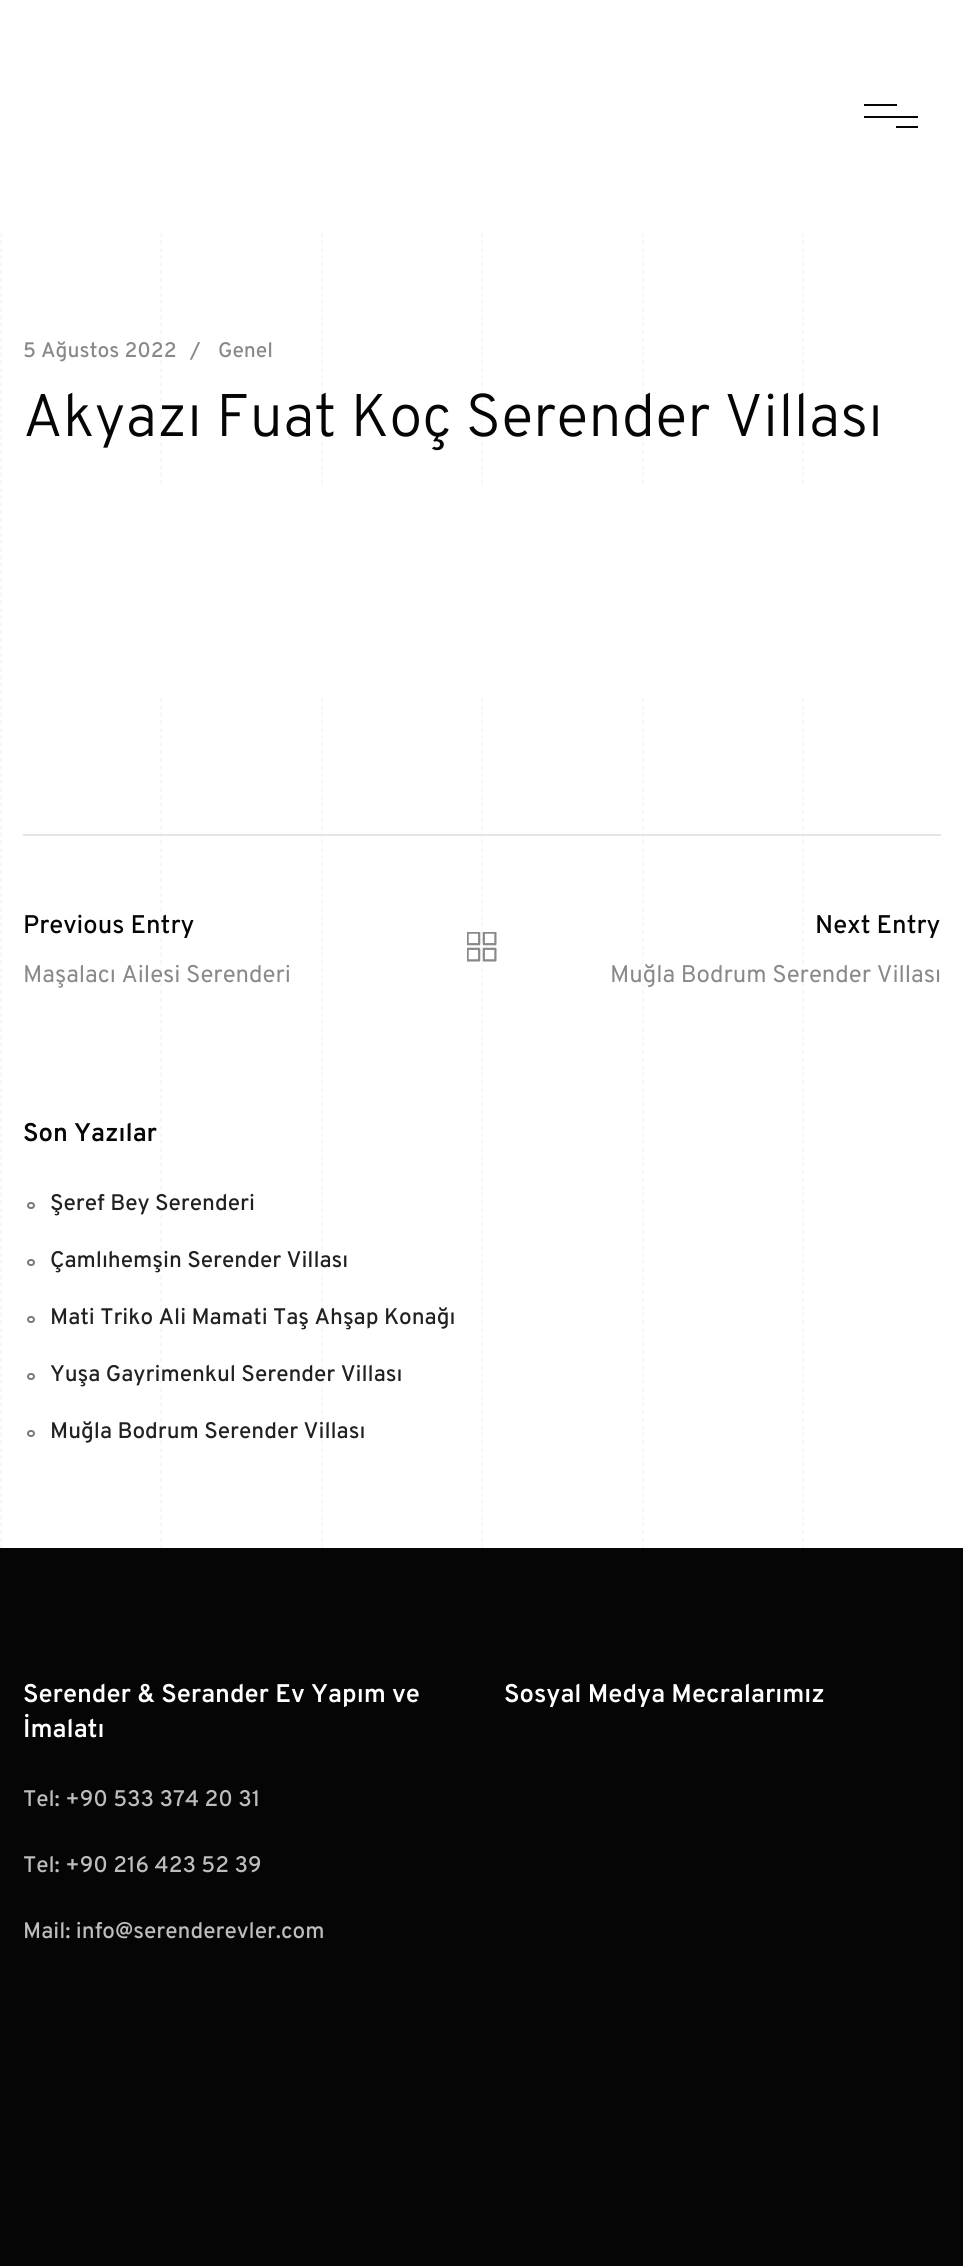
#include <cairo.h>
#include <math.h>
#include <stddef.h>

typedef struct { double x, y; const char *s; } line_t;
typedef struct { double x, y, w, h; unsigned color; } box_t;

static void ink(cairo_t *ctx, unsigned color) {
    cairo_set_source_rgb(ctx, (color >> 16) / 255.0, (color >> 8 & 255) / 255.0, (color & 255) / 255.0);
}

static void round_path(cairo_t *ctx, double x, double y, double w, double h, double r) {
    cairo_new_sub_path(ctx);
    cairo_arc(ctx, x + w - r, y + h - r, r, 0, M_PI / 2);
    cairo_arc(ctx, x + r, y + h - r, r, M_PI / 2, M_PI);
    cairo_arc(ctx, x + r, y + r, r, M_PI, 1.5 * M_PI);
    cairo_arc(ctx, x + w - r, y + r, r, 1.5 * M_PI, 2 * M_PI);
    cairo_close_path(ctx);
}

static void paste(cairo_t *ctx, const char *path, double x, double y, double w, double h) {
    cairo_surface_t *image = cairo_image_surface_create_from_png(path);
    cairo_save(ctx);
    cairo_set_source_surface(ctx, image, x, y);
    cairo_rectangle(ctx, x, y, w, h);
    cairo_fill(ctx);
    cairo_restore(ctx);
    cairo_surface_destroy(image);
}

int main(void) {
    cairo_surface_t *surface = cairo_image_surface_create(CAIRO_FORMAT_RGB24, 963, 2266);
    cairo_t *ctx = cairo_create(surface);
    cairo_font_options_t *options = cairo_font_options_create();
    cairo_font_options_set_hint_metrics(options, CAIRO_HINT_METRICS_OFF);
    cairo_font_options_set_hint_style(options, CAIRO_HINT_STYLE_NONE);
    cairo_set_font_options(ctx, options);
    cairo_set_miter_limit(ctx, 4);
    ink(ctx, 0xFFFFFF);
    cairo_paint(ctx);
    cairo_new_path(ctx);
    cairo_move_to(ctx, 1, 0);
    cairo_line_to(ctx, 1, 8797.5);
    ink(ctx, 0xF4F4F4);
    cairo_set_line_width(ctx, 1.5);
    cairo_set_dash(ctx, (double[]){4.5, 3}, 2, 0);
    cairo_stroke(ctx);
    cairo_new_path(ctx);
    cairo_move_to(ctx, 161, 0);
    cairo_line_to(ctx, 161, 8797.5);
    cairo_stroke(ctx);
    cairo_new_path(ctx);
    cairo_move_to(ctx, 322, 0);
    cairo_line_to(ctx, 322, 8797.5);
    cairo_stroke(ctx);
    cairo_new_path(ctx);
    cairo_move_to(ctx, 482, 0);
    cairo_line_to(ctx, 482, 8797.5);
    cairo_stroke(ctx);
    cairo_new_path(ctx);
    cairo_move_to(ctx, 643, 0);
    cairo_line_to(ctx, 643, 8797.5);
    cairo_stroke(ctx);
    cairo_new_path(ctx);
    cairo_move_to(ctx, 803, 0);
    cairo_line_to(ctx, 803, 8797.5);
    cairo_stroke(ctx);
    {
        static const box_t items[] = {
            {0, 0, 804, 233, 0xFFFFFF},
            {864, 104, 33, 2, 0x050505},
            {864, 116, 54, 2, 0x050505},
            {896, 126, 22, 2, 0x050505},
        };
        for (size_t i = 0; i < sizeof items / sizeof *items; i++) {
            ink(ctx, items[i].color);
            cairo_rectangle(ctx, items[i].x, items[i].y, items[i].w, items[i].h);
            cairo_fill(ctx);
        }
    }
    cairo_select_font_face(ctx, "Overpass Medium", CAIRO_FONT_SLANT_NORMAL, CAIRO_FONT_WEIGHT_NORMAL);
    cairo_set_font_size(ctx, 21);
    ink(ctx, 0x898989);
    {
        static const line_t items[] = {
            {23, 357, "5 Ağustos 2022"},
            {190, 357, "/"},
            {218, 357, "Genel"},
        };
        for (size_t i = 0; i < sizeof items / sizeof *items; i++) {
            cairo_move_to(ctx, items[i].x, items[i].y);
            cairo_show_text(ctx, items[i].s);
        }
    }
    cairo_select_font_face(ctx, "Overpass Light", CAIRO_FONT_SLANT_NORMAL, CAIRO_FONT_WEIGHT_NORMAL);
    cairo_set_font_size(ctx, 60);
    ink(ctx, 0x050505);
    cairo_move_to(ctx, 23, 436);
    cairo_show_text(ctx, "Akyazı Fuat Koç Serender Villası");
    cairo_set_source_rgba(ctx, 1, 1, 1, 0.95);
    cairo_rectangle(ctx, 160, 487, 644, 208);
    cairo_fill(ctx);
    ink(ctx, 0xE5E5E5);
    cairo_rectangle(ctx, 23, 834, 918, 2);
    cairo_fill(ctx);
    cairo_select_font_face(ctx, "Overpass Medium", CAIRO_FONT_SLANT_NORMAL, CAIRO_FONT_WEIGHT_NORMAL);
    cairo_set_font_size(ctx, 25.5);
    ink(ctx, 0x050505);
    cairo_move_to(ctx, 23, 933);
    cairo_show_text(ctx, "Previous Entry");
    cairo_select_font_face(ctx, "Overpass", CAIRO_FONT_SLANT_NORMAL, CAIRO_FONT_WEIGHT_NORMAL);
    cairo_set_font_size(ctx, 24);
    ink(ctx, 0x898989);
    cairo_move_to(ctx, 23, 982);
    cairo_show_text(ctx, "Maşalacı Ailesi Serenderi");
    paste(ctx, "media/1.png", 467, 932, 30, 30);
    cairo_select_font_face(ctx, "Overpass Medium", CAIRO_FONT_SLANT_NORMAL, CAIRO_FONT_WEIGHT_NORMAL);
    cairo_set_font_size(ctx, 25.5);
    ink(ctx, 0x050505);
    cairo_move_to(ctx, 815, 933);
    cairo_show_text(ctx, "Next Entry");
    cairo_select_font_face(ctx, "Overpass", CAIRO_FONT_SLANT_NORMAL, CAIRO_FONT_WEIGHT_NORMAL);
    cairo_set_font_size(ctx, 24);
    ink(ctx, 0x898989);
    cairo_move_to(ctx, 610, 982);
    cairo_show_text(ctx, "Muğla Bodrum Serender Villası");
    cairo_select_font_face(ctx, "Overpass SemiBold", CAIRO_FONT_SLANT_NORMAL, CAIRO_FONT_WEIGHT_NORMAL);
    cairo_set_font_size(ctx, 25.5);
    ink(ctx, 0x050505);
    cairo_move_to(ctx, 23, 1141);
    cairo_show_text(ctx, "Son Yazılar");
    round_path(ctx, 28, 1203, 6, 5, 2.5);
    ink(ctx, 0x7A7A7A);
    cairo_set_line_width(ctx, 2);
    cairo_set_dash(ctx, NULL, 0, 0);
    cairo_stroke(ctx);
    cairo_select_font_face(ctx, "Overpass Medium", CAIRO_FONT_SLANT_NORMAL, CAIRO_FONT_WEIGHT_NORMAL);
    cairo_set_font_size(ctx, 22.5);
    ink(ctx, 0x212121);
    cairo_move_to(ctx, 50, 1210);
    cairo_show_text(ctx, "Şeref Bey Serenderi");
    round_path(ctx, 28, 1260, 6, 5, 2.5);
    ink(ctx, 0x7A7A7A);
    cairo_stroke(ctx);
    ink(ctx, 0x212121);
    cairo_move_to(ctx, 50, 1267);
    cairo_show_text(ctx, "Çamlıhemşin Serender Villası");
    round_path(ctx, 28, 1317, 6, 5, 2.5);
    ink(ctx, 0x7A7A7A);
    cairo_stroke(ctx);
    ink(ctx, 0x212121);
    cairo_move_to(ctx, 50, 1324);
    cairo_show_text(ctx, "Mati Triko Ali Mamati Taş Ahşap Konağı");
    round_path(ctx, 28, 1374, 6, 5, 2.5);
    ink(ctx, 0x7A7A7A);
    cairo_stroke(ctx);
    ink(ctx, 0x212121);
    cairo_move_to(ctx, 50, 1381);
    cairo_show_text(ctx, "Yuşa Gayrimenkul Serender Villası");
    round_path(ctx, 28, 1431, 6, 5, 2.5);
    ink(ctx, 0x7A7A7A);
    cairo_stroke(ctx);
    ink(ctx, 0x212121);
    cairo_move_to(ctx, 50, 1438);
    cairo_show_text(ctx, "Muğla Bodrum Serender Villası");
    ink(ctx, 0x050505);
    cairo_rectangle(ctx, 0, 1548, 963, 718);
    cairo_fill(ctx);
    cairo_select_font_face(ctx, "Overpass SemiBold", CAIRO_FONT_SLANT_NORMAL, CAIRO_FONT_WEIGHT_NORMAL);
    cairo_set_font_size(ctx, 25.5);
    ink(ctx, 0xFFFFFF);
    cairo_move_to(ctx, 23, 1702);
    cairo_show_text(ctx, "Serender & Serander Ev Yapım ve");
    cairo_move_to(ctx, 23, 1737);
    cairo_show_text(ctx, "İmalatı");
    cairo_select_font_face(ctx, "Overpass Medium", CAIRO_FONT_SLANT_NORMAL, CAIRO_FONT_WEIGHT_NORMAL);
    cairo_set_font_size(ctx, 22.5);
    ink(ctx, 0xBDBDBD);
    {
        static const line_t items[] = {
            {23, 1806, "Tel: +90 533 374 20 31"},
            {23, 1872, "Tel: +90 216 423 52 39"},
            {23, 1938, "Mail: info@serenderevler.com"},
        };
        for (size_t i = 0; i < sizeof items / sizeof *items; i++) {
            cairo_move_to(ctx, items[i].x, items[i].y);
            cairo_show_text(ctx, items[i].s);
        }
    }
    cairo_select_font_face(ctx, "Overpass SemiBold", CAIRO_FONT_SLANT_NORMAL, CAIRO_FONT_WEIGHT_NORMAL);
    cairo_set_font_size(ctx, 25.5);
    ink(ctx, 0xFFFFFF);
    cairo_move_to(ctx, 504, 1702);
    cairo_show_text(ctx, "Sosyal Medya Mecralarımız");
    cairo_surface_write_to_png(surface, "image.png");
    cairo_font_options_destroy(options);
    cairo_destroy(ctx);
    cairo_surface_destroy(surface);
    return 0;
}
